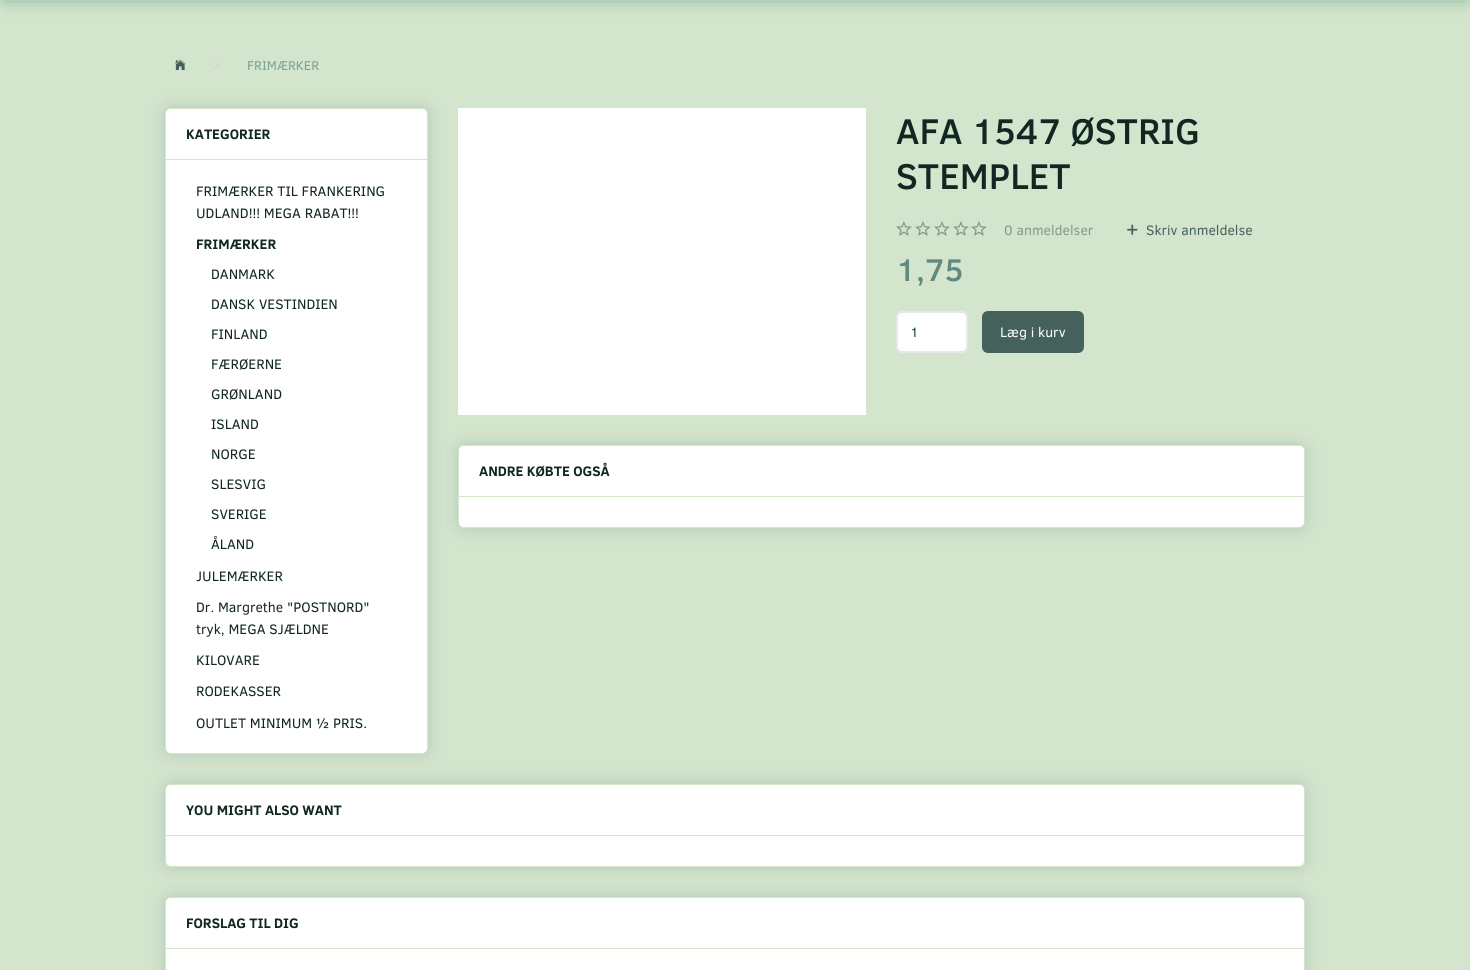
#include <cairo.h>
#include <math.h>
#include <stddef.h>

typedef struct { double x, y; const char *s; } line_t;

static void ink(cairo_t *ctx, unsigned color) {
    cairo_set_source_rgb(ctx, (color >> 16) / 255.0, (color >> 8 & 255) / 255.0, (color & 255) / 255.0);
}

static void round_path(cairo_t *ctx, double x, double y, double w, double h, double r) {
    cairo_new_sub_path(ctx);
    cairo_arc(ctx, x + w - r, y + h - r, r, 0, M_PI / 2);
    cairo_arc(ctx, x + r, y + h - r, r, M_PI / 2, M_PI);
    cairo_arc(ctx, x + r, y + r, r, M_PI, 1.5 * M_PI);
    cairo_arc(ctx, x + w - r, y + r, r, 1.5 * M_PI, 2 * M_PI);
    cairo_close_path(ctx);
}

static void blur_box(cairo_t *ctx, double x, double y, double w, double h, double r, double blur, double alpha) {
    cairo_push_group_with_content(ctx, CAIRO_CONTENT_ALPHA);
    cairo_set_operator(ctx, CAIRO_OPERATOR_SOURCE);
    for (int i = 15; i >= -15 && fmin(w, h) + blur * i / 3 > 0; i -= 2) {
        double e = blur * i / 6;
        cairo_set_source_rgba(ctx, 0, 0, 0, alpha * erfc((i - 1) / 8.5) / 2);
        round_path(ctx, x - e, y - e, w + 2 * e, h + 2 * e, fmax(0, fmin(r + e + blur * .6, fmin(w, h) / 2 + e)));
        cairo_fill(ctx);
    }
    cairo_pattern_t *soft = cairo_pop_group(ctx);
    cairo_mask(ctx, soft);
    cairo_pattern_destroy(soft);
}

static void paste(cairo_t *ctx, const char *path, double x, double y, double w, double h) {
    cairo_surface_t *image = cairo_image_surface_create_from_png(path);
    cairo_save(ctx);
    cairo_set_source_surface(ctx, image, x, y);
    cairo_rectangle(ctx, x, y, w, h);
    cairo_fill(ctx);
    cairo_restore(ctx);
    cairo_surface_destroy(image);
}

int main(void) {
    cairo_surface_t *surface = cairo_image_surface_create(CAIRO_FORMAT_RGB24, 1470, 970);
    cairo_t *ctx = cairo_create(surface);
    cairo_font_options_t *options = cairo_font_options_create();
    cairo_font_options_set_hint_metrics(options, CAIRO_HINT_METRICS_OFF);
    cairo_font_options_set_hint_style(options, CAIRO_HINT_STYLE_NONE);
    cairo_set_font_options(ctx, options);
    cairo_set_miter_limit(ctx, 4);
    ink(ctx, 0xD3E5CC);
    cairo_paint(ctx);
    ink(ctx, 0x5D9085);
    blur_box(ctx, 5, -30, 1460, 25, 0, 10, 1);
    paste(ctx, "media/1.png", 175, 59, 11, 11);
    paste(ctx, "media/2.png", 214, 61, 5, 8);
    cairo_select_font_face(ctx, "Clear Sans", CAIRO_FONT_SLANT_NORMAL, CAIRO_FONT_WEIGHT_NORMAL);
    cairo_set_font_size(ctx, 13);
    ink(ctx, 0x7AA198);
    cairo_move_to(ctx, 247, 70);
    cairo_show_text(ctx, "FRIMÆRKER");
    ink(ctx, 0x99B0AA);
    blur_box(ctx, 170, 113, 253, 636, 1, 10, 1);
    ink(ctx, 0xFFFFFF);
    round_path(ctx, 165.5, 108.5, 262, 645, 5.5);
    cairo_fill_preserve(ctx);
    ink(ctx, 0xD3E5CC);
    cairo_set_line_width(ctx, 1);
    cairo_stroke(ctx);
    ink(ctx, 0xFFFFFF);
    cairo_new_path(ctx);
    cairo_move_to(ctx, 171, 109);
    cairo_line_to(ctx, 422, 109);
    cairo_curve_to(ctx, 425, 109, 427, 111, 427, 114);
    cairo_line_to(ctx, 427, 160);
    cairo_line_to(ctx, 166, 160);
    cairo_line_to(ctx, 166, 114);
    cairo_curve_to(ctx, 166, 111, 168, 109, 171, 109);
    cairo_close_path(ctx);
    cairo_fill(ctx);
    ink(ctx, 0xD3E5CC);
    cairo_rectangle(ctx, 166, 159, 261, 1);
    cairo_fill(ctx);
    cairo_select_font_face(ctx, "Clear Sans", CAIRO_FONT_SLANT_NORMAL, CAIRO_FONT_WEIGHT_BOLD);
    cairo_set_font_size(ctx, 14);
    ink(ctx, 0x112722);
    cairo_move_to(ctx, 186, 139);
    cairo_show_text(ctx, "KATEGORIER");
    cairo_select_font_face(ctx, "Clear Sans", CAIRO_FONT_SLANT_NORMAL, CAIRO_FONT_WEIGHT_NORMAL);
    cairo_move_to(ctx, 196, 196);
    cairo_show_text(ctx, "FRIMÆRKER TIL FRANKERING");
    cairo_move_to(ctx, 196, 218);
    cairo_show_text(ctx, "UDLAND!!! MEGA RABAT!!!");
    cairo_select_font_face(ctx, "Clear Sans", CAIRO_FONT_SLANT_NORMAL, CAIRO_FONT_WEIGHT_BOLD);
    cairo_move_to(ctx, 196, 249);
    cairo_show_text(ctx, "FRIMÆRKER");
    cairo_select_font_face(ctx, "Clear Sans", CAIRO_FONT_SLANT_NORMAL, CAIRO_FONT_WEIGHT_NORMAL);
    {
        static const line_t items[] = {
            {211, 279, "DANMARK"},
            {211, 309, "DANSK VESTINDIEN"},
            {211, 339, "FINLAND"},
            {211, 369, "FÆRØERNE"},
            {211, 399, "GRØNLAND"},
            {211, 429, "ISLAND"},
            {211, 459, "NORGE"},
            {211, 489, "SLESVIG"},
            {211, 519, "SVERIGE"},
            {211, 549, "ÅLAND"},
            {196, 581, "JULEMÆRKER"},
            {196, 612, "Dr. Margrethe \"POSTNORD\""},
            {196, 634, "tryk, MEGA SJÆLDNE"},
            {196, 665, "KILOVARE"},
            {196, 696, "RODEKASSER"},
            {196, 728, "OUTLET MINIMUM ½ PRIS."},
        };
        for (size_t i = 0; i < sizeof items / sizeof *items; i++) {
            cairo_move_to(ctx, items[i].x, items[i].y);
            cairo_show_text(ctx, items[i].s);
        }
    }
    ink(ctx, 0xFFFFFF);
    cairo_rectangle(ctx, 458, 108, 408, 307);
    cairo_fill(ctx);
    cairo_select_font_face(ctx, "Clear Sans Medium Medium", CAIRO_FONT_SLANT_NORMAL, CAIRO_FONT_WEIGHT_NORMAL);
    cairo_set_font_size(ctx, 36.5);
    ink(ctx, 0x112722);
    cairo_move_to(ctx, 896, 144);
    cairo_show_text(ctx, "AFA 1547 ØSTRIG");
    cairo_move_to(ctx, 896, 189);
    cairo_show_text(ctx, "STEMPLET");
    paste(ctx, "media/3.png", 896, 221, 16, 15);
    paste(ctx, "media/3.png", 915, 221, 16, 15);
    paste(ctx, "media/3.png", 934, 221, 16, 15);
    paste(ctx, "media/3.png", 953, 221, 16, 15);
    paste(ctx, "media/3.png", 971, 221, 16, 15);
    cairo_select_font_face(ctx, "Clear Sans", CAIRO_FONT_SLANT_NORMAL, CAIRO_FONT_WEIGHT_NORMAL);
    cairo_set_font_size(ctx, 14);
    ink(ctx, 0x859988);
    cairo_move_to(ctx, 1004, 235);
    cairo_show_text(ctx, "0 anmeldelser");
    paste(ctx, "media/4.png", 1127, 224, 11, 11);
    ink(ctx, 0x45615B);
    cairo_move_to(ctx, 1146, 235);
    cairo_show_text(ctx, "Skriv anmeldelse");
    cairo_select_font_face(ctx, "Clear Sans Medium Medium", CAIRO_FONT_SLANT_NORMAL, CAIRO_FONT_WEIGHT_NORMAL);
    cairo_set_font_size(ctx, 32);
    ink(ctx, 0x618980);
    cairo_move_to(ctx, 896, 281);
    cairo_show_text(ctx, "1,75");
    ink(ctx, 0xFFFFFF);
    round_path(ctx, 897, 312, 70, 40, 5);
    cairo_fill_preserve(ctx);
    ink(ctx, 0xE8E8E8);
    cairo_set_line_width(ctx, 2);
    cairo_stroke(ctx);
    cairo_select_font_face(ctx, "Clear Sans", CAIRO_FONT_SLANT_NORMAL, CAIRO_FONT_WEIGHT_NORMAL);
    cairo_set_font_size(ctx, 14);
    ink(ctx, 0x1F473E);
    cairo_move_to(ctx, 910, 337);
    cairo_show_text(ctx, "1");
    ink(ctx, 0x45615B);
    round_path(ctx, 982, 311, 102, 42, 6);
    cairo_fill(ctx);
    ink(ctx, 0xFFFFFF);
    cairo_move_to(ctx, 1000, 337);
    cairo_show_text(ctx, "Læg i kurv");
    ink(ctx, 0x99B0AA);
    blur_box(ctx, 463, 450, 837, 73, 1, 10, 1);
    ink(ctx, 0xFFFFFF);
    round_path(ctx, 458.5, 445.5, 846, 82, 5.5);
    cairo_fill_preserve(ctx);
    ink(ctx, 0xD3E5CC);
    cairo_set_line_width(ctx, 1);
    cairo_stroke(ctx);
    ink(ctx, 0xFFFFFF);
    cairo_new_path(ctx);
    cairo_move_to(ctx, 464, 446);
    cairo_line_to(ctx, 1299, 446);
    cairo_curve_to(ctx, 1302, 446, 1304, 448, 1304, 451);
    cairo_line_to(ctx, 1304, 497);
    cairo_line_to(ctx, 459, 497);
    cairo_line_to(ctx, 459, 451);
    cairo_curve_to(ctx, 459, 448, 461, 446, 464, 446);
    cairo_close_path(ctx);
    cairo_fill(ctx);
    ink(ctx, 0xD3E5CC);
    cairo_rectangle(ctx, 459, 496, 845, 1);
    cairo_fill(ctx);
    cairo_select_font_face(ctx, "Clear Sans", CAIRO_FONT_SLANT_NORMAL, CAIRO_FONT_WEIGHT_BOLD);
    ink(ctx, 0x112722);
    cairo_move_to(ctx, 479, 476);
    cairo_show_text(ctx, "ANDRE KØBTE OGSÅ");
    ink(ctx, 0x99B0AA);
    blur_box(ctx, 170, 789, 1130, 73, 1, 10, 1);
    ink(ctx, 0xFFFFFF);
    round_path(ctx, 165.5, 784.5, 1139, 82, 5.5);
    cairo_fill_preserve(ctx);
    ink(ctx, 0xD3E5CC);
    cairo_stroke(ctx);
    ink(ctx, 0xFFFFFF);
    cairo_new_path(ctx);
    cairo_move_to(ctx, 171, 785);
    cairo_line_to(ctx, 1299, 785);
    cairo_curve_to(ctx, 1302, 785, 1304, 787, 1304, 790);
    cairo_line_to(ctx, 1304, 836);
    cairo_line_to(ctx, 166, 836);
    cairo_line_to(ctx, 166, 790);
    cairo_curve_to(ctx, 166, 787, 168, 785, 171, 785);
    cairo_close_path(ctx);
    cairo_fill(ctx);
    ink(ctx, 0xD3E5CC);
    cairo_rectangle(ctx, 166, 835, 1138, 1);
    cairo_fill(ctx);
    ink(ctx, 0x112722);
    cairo_move_to(ctx, 186, 815);
    cairo_show_text(ctx, "YOU MIGHT ALSO WANT");
    ink(ctx, 0x99B0AA);
    blur_box(ctx, 170, 902, 1130, 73, 1, 10, 1);
    ink(ctx, 0xFFFFFF);
    round_path(ctx, 165.5, 897.5, 1139, 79, 5.5);
    cairo_fill_preserve(ctx);
    ink(ctx, 0xD3E5CC);
    cairo_stroke(ctx);
    ink(ctx, 0xFFFFFF);
    cairo_new_path(ctx);
    cairo_move_to(ctx, 171, 898);
    cairo_line_to(ctx, 1299, 898);
    cairo_curve_to(ctx, 1302, 898, 1304, 900, 1304, 903);
    cairo_line_to(ctx, 1304, 949);
    cairo_line_to(ctx, 166, 949);
    cairo_line_to(ctx, 166, 903);
    cairo_curve_to(ctx, 166, 900, 168, 898, 171, 898);
    cairo_close_path(ctx);
    cairo_fill(ctx);
    ink(ctx, 0xD3E5CC);
    cairo_rectangle(ctx, 166, 948, 1138, 1);
    cairo_fill(ctx);
    ink(ctx, 0x112722);
    cairo_move_to(ctx, 186, 928);
    cairo_show_text(ctx, "FORSLAG TIL DIG");
    cairo_surface_write_to_png(surface, "image.png");
    cairo_font_options_destroy(options);
    cairo_destroy(ctx);
    cairo_surface_destroy(surface);
    return 0;
}
